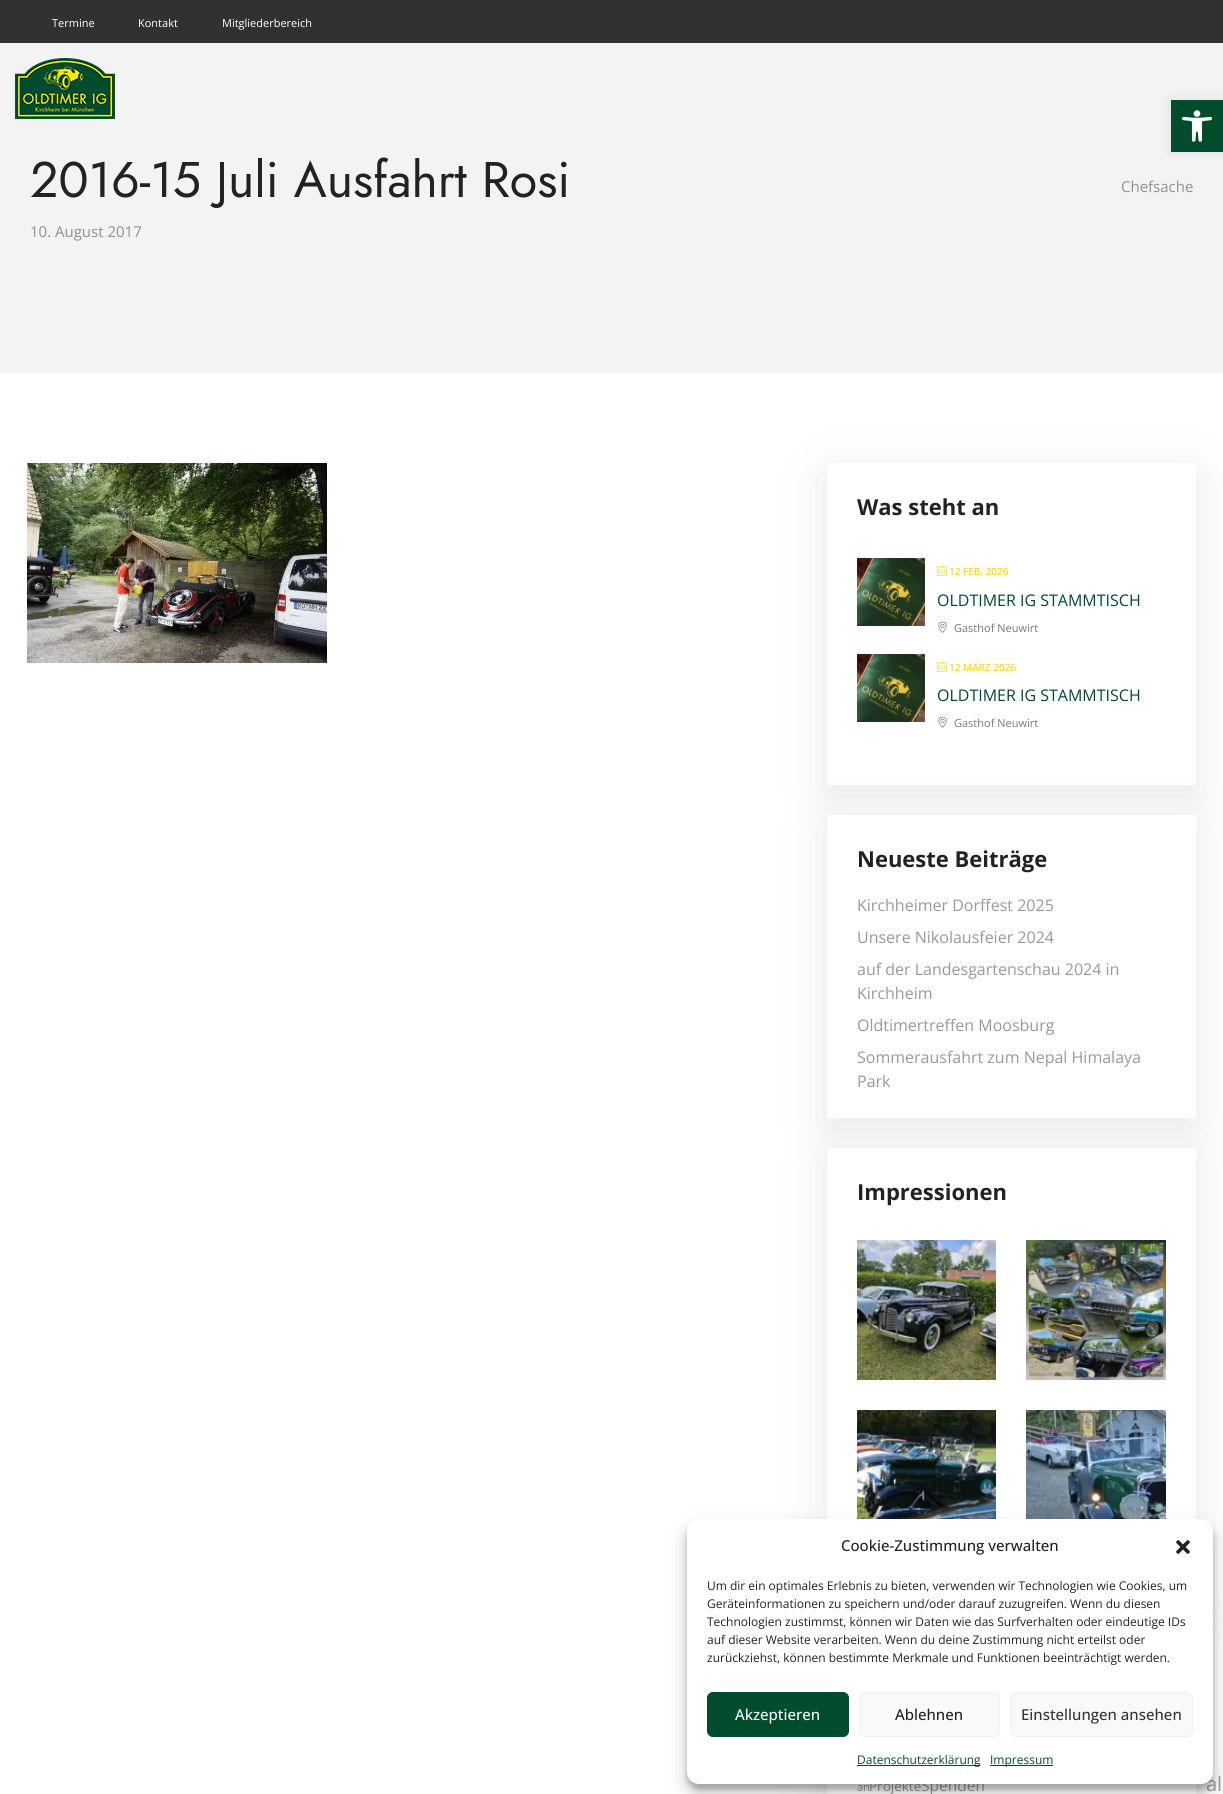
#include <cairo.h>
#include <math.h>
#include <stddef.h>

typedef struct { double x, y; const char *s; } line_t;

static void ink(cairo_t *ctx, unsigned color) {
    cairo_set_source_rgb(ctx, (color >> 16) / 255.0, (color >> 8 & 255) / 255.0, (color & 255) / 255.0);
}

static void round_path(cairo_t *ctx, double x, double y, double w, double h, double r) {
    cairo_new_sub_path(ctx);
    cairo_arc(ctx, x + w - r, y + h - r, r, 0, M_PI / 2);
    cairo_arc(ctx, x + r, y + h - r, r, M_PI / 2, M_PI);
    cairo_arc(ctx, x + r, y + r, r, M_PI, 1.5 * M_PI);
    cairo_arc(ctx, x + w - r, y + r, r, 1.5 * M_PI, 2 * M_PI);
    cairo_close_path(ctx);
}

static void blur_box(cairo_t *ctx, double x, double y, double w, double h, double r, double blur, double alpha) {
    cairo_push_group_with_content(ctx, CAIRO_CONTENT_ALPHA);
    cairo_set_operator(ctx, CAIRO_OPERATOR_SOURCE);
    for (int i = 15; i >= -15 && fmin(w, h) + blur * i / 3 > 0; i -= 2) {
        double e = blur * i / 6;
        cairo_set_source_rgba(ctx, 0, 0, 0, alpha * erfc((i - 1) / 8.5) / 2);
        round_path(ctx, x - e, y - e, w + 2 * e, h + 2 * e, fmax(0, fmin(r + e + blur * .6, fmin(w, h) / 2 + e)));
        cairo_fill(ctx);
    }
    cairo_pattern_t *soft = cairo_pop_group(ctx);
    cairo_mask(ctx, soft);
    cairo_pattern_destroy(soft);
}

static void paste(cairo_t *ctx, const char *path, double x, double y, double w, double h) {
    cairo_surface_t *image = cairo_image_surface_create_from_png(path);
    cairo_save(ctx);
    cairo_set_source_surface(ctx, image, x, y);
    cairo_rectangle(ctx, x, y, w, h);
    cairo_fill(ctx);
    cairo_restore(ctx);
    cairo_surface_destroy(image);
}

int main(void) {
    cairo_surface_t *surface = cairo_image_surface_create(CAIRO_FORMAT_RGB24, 1223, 1794);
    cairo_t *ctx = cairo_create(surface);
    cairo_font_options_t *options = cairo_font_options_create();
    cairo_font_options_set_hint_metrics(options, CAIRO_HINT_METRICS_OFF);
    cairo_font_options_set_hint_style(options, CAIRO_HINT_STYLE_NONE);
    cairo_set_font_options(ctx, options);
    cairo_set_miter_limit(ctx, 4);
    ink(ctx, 0xFFFFFF);
    cairo_paint(ctx);
    ink(ctx, 0x313131);
    cairo_rectangle(ctx, 0, 0, 1223, 43);
    cairo_fill(ctx);
    cairo_select_font_face(ctx, "Open Sans", CAIRO_FONT_SLANT_NORMAL, CAIRO_FONT_WEIGHT_NORMAL);
    cairo_set_font_size(ctx, 11);
    ink(ctx, 0xFFFFFF);
    {
        static const line_t items[] = {
            {52, 27, "Termine"},
            {138, 27, "Kontakt"},
            {222, 27, "Mitgliederbereich"},
        };
        for (size_t i = 0; i < sizeof items / sizeof *items; i++) {
            cairo_move_to(ctx, items[i].x, items[i].y);
            cairo_show_text(ctx, items[i].s);
        }
    }
    ink(ctx, 0xF3F3F3);
    cairo_rectangle(ctx, 0, 43, 1223, 330);
    cairo_fill(ctx);
    paste(ctx, "media/1.png", 15, 58, 100, 61);
    ink(ctx, 0x000000);
    blur_box(ctx, 1171, 100, 52, 52, 0, 5, 0.1);
    ink(ctx, 0x004C2D);
    cairo_rectangle(ctx, 1171, 100, 52, 52);
    cairo_fill(ctx);
    paste(ctx, "media/2.png", 1182, 110, 30, 32);
    cairo_select_font_face(ctx, "Jost", CAIRO_FONT_SLANT_NORMAL, CAIRO_FONT_WEIGHT_NORMAL);
    cairo_set_font_size(ctx, 50);
    ink(ctx, 0x222222);
    cairo_move_to(ctx, 30, 197);
    cairo_show_text(ctx, "2016-15 Juli Ausfahrt Rosi");
    cairo_select_font_face(ctx, "Open Sans", CAIRO_FONT_SLANT_NORMAL, CAIRO_FONT_WEIGHT_NORMAL);
    cairo_set_font_size(ctx, 15);
    ink(ctx, 0x8F9093);
    cairo_move_to(ctx, 30, 237);
    cairo_show_text(ctx, "10. August 2017");
    cairo_move_to(ctx, 1121, 192);
    cairo_show_text(ctx, "Chefsache");
    paste(ctx, "media/3.png", 27, 463, 300, 200);
    cairo_save(ctx);
    cairo_set_fill_rule(ctx, CAIRO_FILL_RULE_EVEN_ODD);
    cairo_new_path(ctx);
    cairo_move_to(ctx, 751, 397);
    cairo_line_to(ctx, 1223, 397);
    cairo_line_to(ctx, 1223, 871);
    cairo_line_to(ctx, 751, 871);
    cairo_close_path(ctx);
    cairo_move_to(ctx, 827, 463);
    cairo_line_to(ctx, 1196, 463);
    cairo_line_to(ctx, 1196, 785);
    cairo_line_to(ctx, 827, 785);
    cairo_close_path(ctx);
    cairo_clip(ctx);
    ink(ctx, 0x000000);
    blur_box(ctx, 827, 473, 369, 322, 0, 25, 0.09);
    cairo_restore(ctx);
    cairo_select_font_face(ctx, "Open Sans", CAIRO_FONT_SLANT_NORMAL, CAIRO_FONT_WEIGHT_BOLD);
    cairo_set_font_size(ctx, 22);
    ink(ctx, 0x222222);
    cairo_move_to(ctx, 857, 515);
    cairo_show_text(ctx, "Was steht an");
    paste(ctx, "media/4.png", 857, 558, 68, 68);
    paste(ctx, "media/5.png", 937, 565, 10, 11);
    cairo_select_font_face(ctx, "Open Sans Medium", CAIRO_FONT_SLANT_NORMAL, CAIRO_FONT_WEIGHT_NORMAL);
    cairo_set_font_size(ctx, 10);
    ink(ctx, 0xF4D801);
    cairo_move_to(ctx, 949, 575);
    cairo_show_text(ctx, "12 FEB. 2026");
    cairo_select_font_face(ctx, "Open Sans", CAIRO_FONT_SLANT_NORMAL, CAIRO_FONT_WEIGHT_NORMAL);
    cairo_set_font_size(ctx, 16);
    ink(ctx, 0x004A2E);
    cairo_move_to(ctx, 937, 606);
    cairo_show_text(ctx, "OLDTIMER IG STAMMTISCH");
    paste(ctx, "media/6.png", 938, 621, 9, 12);
    cairo_set_font_size(ctx, 11);
    ink(ctx, 0x777777);
    cairo_move_to(ctx, 954, 632);
    cairo_show_text(ctx, "Gasthof Neuwirt");
    paste(ctx, "media/4.png", 857, 654, 68, 68);
    paste(ctx, "media/5.png", 937, 661, 10, 11);
    cairo_select_font_face(ctx, "Open Sans Medium", CAIRO_FONT_SLANT_NORMAL, CAIRO_FONT_WEIGHT_NORMAL);
    cairo_set_font_size(ctx, 10);
    ink(ctx, 0xF4D801);
    cairo_move_to(ctx, 949, 671);
    cairo_show_text(ctx, "12 MÄRZ 2026");
    cairo_select_font_face(ctx, "Open Sans", CAIRO_FONT_SLANT_NORMAL, CAIRO_FONT_WEIGHT_NORMAL);
    cairo_set_font_size(ctx, 16);
    ink(ctx, 0x004A2E);
    cairo_move_to(ctx, 937, 701);
    cairo_show_text(ctx, "OLDTIMER IG STAMMTISCH");
    paste(ctx, "media/6.png", 938, 716, 9, 12);
    cairo_set_font_size(ctx, 11);
    ink(ctx, 0x777777);
    cairo_move_to(ctx, 954, 727);
    cairo_show_text(ctx, "Gasthof Neuwirt");
    ink(ctx, 0x000000);
    blur_box(ctx, 827, 825, 369, 303, 0, 25, 0.09);
    ink(ctx, 0xFFFFFF);
    cairo_rectangle(ctx, 827, 815, 369, 303);
    cairo_fill(ctx);
    cairo_select_font_face(ctx, "Open Sans", CAIRO_FONT_SLANT_NORMAL, CAIRO_FONT_WEIGHT_BOLD);
    cairo_set_font_size(ctx, 22);
    ink(ctx, 0x222222);
    cairo_move_to(ctx, 857, 867);
    cairo_show_text(ctx, "Neueste Beiträge");
    cairo_select_font_face(ctx, "Open Sans", CAIRO_FONT_SLANT_NORMAL, CAIRO_FONT_WEIGHT_NORMAL);
    cairo_set_font_size(ctx, 16);
    ink(ctx, 0x999999);
    {
        static const line_t items[] = {
            {857, 911, "Kirchheimer Dorffest 2025"},
            {857, 943, "Unsere Nikolausfeier 2024"},
            {857, 975, "auf der Landesgartenschau 2024 in"},
            {857, 999, "Kirchheim"},
            {857, 1031, "Oldtimertreffen Moosburg"},
            {857, 1063, "Sommerausfahrt zum Nepal Himalaya"},
        };
        for (size_t i = 0; i < sizeof items / sizeof *items; i++) {
            cairo_move_to(ctx, items[i].x, items[i].y);
            cairo_show_text(ctx, items[i].s);
        }
    }
    ink(ctx, 0x000000);
    blur_box(ctx, 827, 1158, 369, 447, 0, 25, 0.09);
    ink(ctx, 0x999999);
    cairo_move_to(ctx, 857, 1087);
    cairo_show_text(ctx, "Park");
    ink(ctx, 0xFFFFFF);
    cairo_rectangle(ctx, 827, 1148, 369, 371);
    cairo_fill(ctx);
    cairo_select_font_face(ctx, "Open Sans", CAIRO_FONT_SLANT_NORMAL, CAIRO_FONT_WEIGHT_BOLD);
    cairo_set_font_size(ctx, 22);
    ink(ctx, 0x222222);
    cairo_move_to(ctx, 857, 1200);
    cairo_show_text(ctx, "Impressionen");
    paste(ctx, "media/7.png", 857, 1240, 139, 140);
    paste(ctx, "media/8.png", 1026, 1240, 140, 140);
    paste(ctx, "media/9.png", 857, 1410, 139, 109);
    paste(ctx, "media/10.png", 1026, 1410, 140, 109);
    ink(ctx, 0x000000);
    blur_box(ctx, 827, 1635, 369, 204, 0, 25, 0.09);
    ink(ctx, 0xFFFFFF);
    cairo_rectangle(ctx, 827, 1784, 369, 10);
    cairo_fill(ctx);
    cairo_select_font_face(ctx, "Open Sans", CAIRO_FONT_SLANT_NORMAL, CAIRO_FONT_WEIGHT_NORMAL);
    cairo_set_font_size(ctx, 11);
    ink(ctx, 0x999999);
    cairo_move_to(ctx, 857, 1791);
    cairo_show_text(ctx, "an");
    cairo_set_font_size(ctx, 13.5);
    cairo_move_to(ctx, 869, 1791);
    cairo_show_text(ctx, "Projekte");
    cairo_set_font_size(ctx, 15.5);
    cairo_move_to(ctx, 921, 1791);
    cairo_show_text(ctx, "Spenden");
    cairo_set_font_size(ctx, 20);
    cairo_move_to(ctx, 1206, 1791);
    cairo_show_text(ctx, "al");
    ink(ctx, 0x000000);
    blur_box(ctx, 687, 1525, 526, 265, 12, 3, 0.23);
    blur_box(ctx, 687, 1529, 526, 265, 12, 10, 0.19);
    ink(ctx, 0xFFFFFF);
    round_path(ctx, 687, 1519, 526, 265, 12);
    cairo_fill(ctx);
    cairo_select_font_face(ctx, "Open Sans Medium", CAIRO_FONT_SLANT_NORMAL, CAIRO_FONT_WEIGHT_NORMAL);
    cairo_set_font_size(ctx, 15);
    ink(ctx, 0x222222);
    cairo_move_to(ctx, 841, 1551);
    cairo_show_text(ctx, "Cookie-Zustimmung verwalten");
    paste(ctx, "media/11.png", 1176, 1540, 14, 14);
    cairo_select_font_face(ctx, "Open Sans", CAIRO_FONT_SLANT_NORMAL, CAIRO_FONT_WEIGHT_NORMAL);
    cairo_set_font_size(ctx, 12);
    {
        static const line_t items[] = {
            {707, 1590, "Um dir ein optimales Erlebnis zu bieten, verwenden wir Technologien wie Cookies, um"},
            {707, 1608, "Geräteinformationen zu speichern und/oder darauf zuzugreifen. Wenn du diesen"},
            {707, 1626, "Technologien zustimmst, können wir Daten wie das Surfverhalten oder eindeutige IDs"},
            {707, 1644, "auf dieser Website verarbeiten. Wenn du deine Zustimmung nicht erteilst oder"},
            {707, 1662, "zurückziehst, können bestimmte Merkmale und Funktionen beeinträchtigt werden."},
        };
        for (size_t i = 0; i < sizeof items / sizeof *items; i++) {
            cairo_move_to(ctx, items[i].x, items[i].y);
            cairo_show_text(ctx, items[i].s);
        }
    }
    ink(ctx, 0x004C2D);
    round_path(ctx, 707.5, 1692.5, 141, 44, 5.5);
    cairo_fill_preserve(ctx);
    cairo_set_line_width(ctx, 1);
    cairo_stroke(ctx);
    cairo_select_font_face(ctx, "Open Sans Medium", CAIRO_FONT_SLANT_NORMAL, CAIRO_FONT_WEIGHT_NORMAL);
    cairo_set_font_size(ctx, 15);
    ink(ctx, 0xFFFFFF);
    cairo_move_to(ctx, 735, 1720);
    cairo_show_text(ctx, "Akzeptieren");
    ink(ctx, 0xF9F9F9);
    round_path(ctx, 859.5, 1692.5, 140, 44, 5.5);
    cairo_fill_preserve(ctx);
    ink(ctx, 0xF2F2F2);
    cairo_stroke(ctx);
    ink(ctx, 0x222222);
    cairo_move_to(ctx, 895, 1720);
    cairo_show_text(ctx, "Ablehnen");
    ink(ctx, 0xF9F9F9);
    round_path(ctx, 1010.5, 1692.5, 182, 44, 5.5);
    cairo_fill_preserve(ctx);
    ink(ctx, 0xF2F2F2);
    cairo_stroke(ctx);
    ink(ctx, 0x333333);
    cairo_move_to(ctx, 1021, 1720);
    cairo_show_text(ctx, "Einstellungen ansehen");
    ink(ctx, 0x004C2D);
    cairo_rectangle(ctx, 857, 1765, 123, 1);
    cairo_fill(ctx);
    cairo_select_font_face(ctx, "Open Sans", CAIRO_FONT_SLANT_NORMAL, CAIRO_FONT_WEIGHT_NORMAL);
    cairo_set_font_size(ctx, 12);
    ink(ctx, 0x004A2E);
    cairo_move_to(ctx, 857, 1764);
    cairo_show_text(ctx, "Datenschutzerklärung");
    ink(ctx, 0x004C2D);
    cairo_rectangle(ctx, 990, 1765, 63, 1);
    cairo_fill(ctx);
    ink(ctx, 0x004A2E);
    cairo_move_to(ctx, 990, 1764);
    cairo_show_text(ctx, "Impressum");
    cairo_surface_write_to_png(surface, "image.png");
    cairo_font_options_destroy(options);
    cairo_destroy(ctx);
    cairo_surface_destroy(surface);
    return 0;
}
